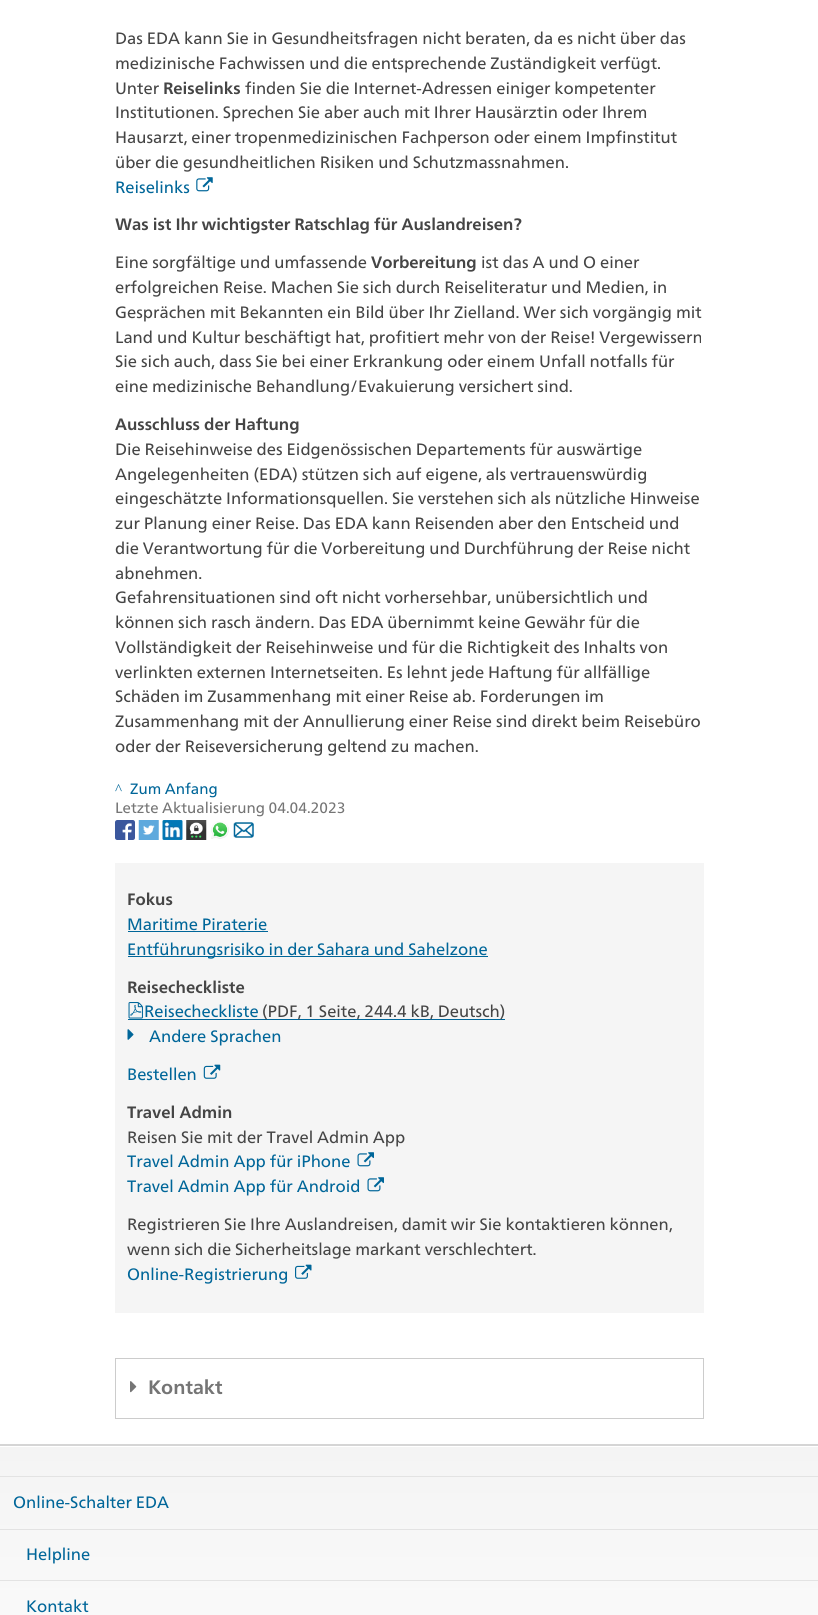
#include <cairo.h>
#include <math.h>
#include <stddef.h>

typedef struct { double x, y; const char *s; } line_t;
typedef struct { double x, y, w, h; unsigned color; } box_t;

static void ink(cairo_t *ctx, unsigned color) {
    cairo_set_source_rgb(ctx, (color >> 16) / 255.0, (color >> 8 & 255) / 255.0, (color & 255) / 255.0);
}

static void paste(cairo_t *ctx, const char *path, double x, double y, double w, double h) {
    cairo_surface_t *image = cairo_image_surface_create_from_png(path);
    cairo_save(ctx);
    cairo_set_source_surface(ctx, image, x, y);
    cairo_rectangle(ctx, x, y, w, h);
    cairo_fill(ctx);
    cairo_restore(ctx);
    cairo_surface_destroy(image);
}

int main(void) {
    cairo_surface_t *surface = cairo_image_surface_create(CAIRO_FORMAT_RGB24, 818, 1615);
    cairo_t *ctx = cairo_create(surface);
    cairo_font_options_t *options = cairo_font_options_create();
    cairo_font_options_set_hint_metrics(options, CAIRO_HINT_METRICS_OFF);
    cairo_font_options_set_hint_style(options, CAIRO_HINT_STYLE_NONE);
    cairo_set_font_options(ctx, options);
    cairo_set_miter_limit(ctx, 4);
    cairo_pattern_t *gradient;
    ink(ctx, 0xFFFFFF);
    cairo_paint(ctx);
    cairo_select_font_face(ctx, "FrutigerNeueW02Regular", CAIRO_FONT_SLANT_NORMAL, CAIRO_FONT_WEIGHT_NORMAL);
    cairo_set_font_size(ctx, 16.5);
    ink(ctx, 0x454545);
    {
        static const line_t items[] = {
            {115, 44, "Das EDA kann Sie in Gesundheitsfragen nicht beraten, da es nicht über das"},
            {115, 69, "medizinische Fachwissen und die entsprechende Zuständigkeit verfügt."},
            {115, 94, "Unter"},
        };
        for (size_t i = 0; i < sizeof items / sizeof *items; i++) {
            cairo_move_to(ctx, items[i].x, items[i].y);
            cairo_show_text(ctx, items[i].s);
        }
    }
    cairo_select_font_face(ctx, "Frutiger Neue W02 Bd", CAIRO_FONT_SLANT_NORMAL, CAIRO_FONT_WEIGHT_BOLD);
    cairo_move_to(ctx, 163, 94);
    cairo_show_text(ctx, "Reiselinks");
    cairo_select_font_face(ctx, "FrutigerNeueW02Regular", CAIRO_FONT_SLANT_NORMAL, CAIRO_FONT_WEIGHT_NORMAL);
    {
        static const line_t items[] = {
            {245, 94, "finden Sie die Internet-Adressen einiger kompetenter"},
            {115, 118, "Institutionen. Sprechen Sie aber auch mit Ihrer Hausärztin oder Ihrem"},
            {115, 143, "Hausarzt, einer tropenmedizinischen Fachperson oder einem Impfinstitut"},
            {115, 168, "über die gesundheitlichen Risiken und Schutzmassnahmen."},
        };
        for (size_t i = 0; i < sizeof items / sizeof *items; i++) {
            cairo_move_to(ctx, items[i].x, items[i].y);
            cairo_show_text(ctx, items[i].s);
        }
    }
    ink(ctx, 0x006699);
    cairo_move_to(ctx, 115, 193);
    cairo_show_text(ctx, "Reiselinks");
    paste(ctx, "media/1.png", 196, 177, 17, 15);
    cairo_select_font_face(ctx, "Frutiger Neue W02 Bd", CAIRO_FONT_SLANT_NORMAL, CAIRO_FONT_WEIGHT_BOLD);
    ink(ctx, 0x454545);
    cairo_move_to(ctx, 115, 230);
    cairo_show_text(ctx, "Was ist Ihr wichtigster Ratschlag für Auslandreisen?");
    cairo_select_font_face(ctx, "FrutigerNeueW02Regular", CAIRO_FONT_SLANT_NORMAL, CAIRO_FONT_WEIGHT_NORMAL);
    cairo_move_to(ctx, 115, 268);
    cairo_show_text(ctx, "Eine sorgfältige und umfassende");
    cairo_select_font_face(ctx, "Frutiger Neue W02 Bd", CAIRO_FONT_SLANT_NORMAL, CAIRO_FONT_WEIGHT_BOLD);
    cairo_move_to(ctx, 371, 268);
    cairo_show_text(ctx, "Vorbereitung");
    cairo_select_font_face(ctx, "FrutigerNeueW02Regular", CAIRO_FONT_SLANT_NORMAL, CAIRO_FONT_WEIGHT_NORMAL);
    {
        static const line_t items[] = {
            {481, 268, "ist das A und O einer"},
            {115, 293, "erfolgreichen Reise. Machen Sie sich durch Reiseliteratur und Medien, in"},
            {115, 318, "Gesprächen mit Bekannten ein Bild über Ihr Zielland. Wer sich vorgängig mit"},
            {115, 343, "Land und Kultur beschäftigt hat, profitiert mehr von der Reise! Vergewissern"},
            {115, 367, "Sie sich auch, dass Sie bei einer Erkrankung oder einem Unfall notfalls für"},
            {115, 392, "eine medizinische Behandlung/Evakuierung versichert sind."},
        };
        for (size_t i = 0; i < sizeof items / sizeof *items; i++) {
            cairo_move_to(ctx, items[i].x, items[i].y);
            cairo_show_text(ctx, items[i].s);
        }
    }
    cairo_select_font_face(ctx, "Frutiger Neue W02 Bd", CAIRO_FONT_SLANT_NORMAL, CAIRO_FONT_WEIGHT_BOLD);
    cairo_move_to(ctx, 115, 430);
    cairo_show_text(ctx, "Ausschluss der Haftung");
    cairo_select_font_face(ctx, "FrutigerNeueW02Regular", CAIRO_FONT_SLANT_NORMAL, CAIRO_FONT_WEIGHT_NORMAL);
    {
        static const line_t items[] = {
            {115, 455, "Die Reisehinweise des Eidgenössischen Departements für auswärtige"},
            {115, 480, "Angelegenheiten (EDA) stützen sich auf eigene, als vertrauenswürdig"},
            {115, 504, "eingeschätzte Informationsquellen. Sie verstehen sich als nützliche Hinweise"},
            {115, 529, "zur Planung einer Reise. Das EDA kann Reisenden aber den Entscheid und"},
            {115, 554, "die Verantwortung für die Vorbereitung und Durchführung der Reise nicht"},
            {115, 579, "abnehmen."},
            {115, 603, "Gefahrensituationen sind oft nicht vorhersehbar, unübersichtlich und"},
            {115, 628, "können sich rasch ändern. Das EDA übernimmt keine Gewähr für die"},
            {115, 653, "Vollständigkeit der Reisehinweise und für die Richtigkeit des Inhalts von"},
            {115, 678, "verlinkten externen Internetseiten. Es lehnt jede Haftung für allfällige"},
            {115, 702, "Schäden im Zusammenhang mit einer Reise ab. Forderungen im"},
            {115, 727, "Zusammenhang mit der Annullierung einer Reise sind direkt beim Reisebüro"},
            {115, 752, "oder der Reiseversicherung geltend zu machen."},
        };
        for (size_t i = 0; i < sizeof items / sizeof *items; i++) {
            cairo_move_to(ctx, items[i].x, items[i].y);
            cairo_show_text(ctx, items[i].s);
        }
    }
    cairo_select_font_face(ctx, "Liberation Serif", CAIRO_FONT_SLANT_NORMAL, CAIRO_FONT_WEIGHT_NORMAL);
    cairo_set_font_size(ctx, 15);
    ink(ctx, 0x006699);
    cairo_move_to(ctx, 115, 794);
    cairo_show_text(ctx, "^");
    cairo_select_font_face(ctx, "FrutigerNeueW02Regular", CAIRO_FONT_SLANT_NORMAL, CAIRO_FONT_WEIGHT_NORMAL);
    cairo_move_to(ctx, 130, 794);
    cairo_show_text(ctx, "Zum Anfang");
    ink(ctx, 0x757575);
    cairo_move_to(ctx, 115, 813);
    cairo_show_text(ctx, "Letzte Aktualisierung 04.04.2023");
    paste(ctx, "media/2.png", 115, 820, 20, 20);
    paste(ctx, "media/3.png", 138, 820, 21, 20);
    paste(ctx, "media/4.png", 162, 820, 21, 20);
    paste(ctx, "media/5.png", 186, 820, 21, 20);
    paste(ctx, "media/6.png", 211, 821, 18, 18);
    paste(ctx, "media/7.png", 233, 822, 21, 16);
    ink(ctx, 0xF5F5F5);
    cairo_rectangle(ctx, 115, 863, 589, 450);
    cairo_fill(ctx);
    cairo_select_font_face(ctx, "Frutiger Neue W02 Bd", CAIRO_FONT_SLANT_NORMAL, CAIRO_FONT_WEIGHT_BOLD);
    cairo_set_font_size(ctx, 16.5);
    ink(ctx, 0x454545);
    cairo_move_to(ctx, 127, 905);
    cairo_show_text(ctx, "Fokus");
    cairo_select_font_face(ctx, "FrutigerNeueW02Regular", CAIRO_FONT_SLANT_NORMAL, CAIRO_FONT_WEIGHT_NORMAL);
    ink(ctx, 0x006699);
    cairo_move_to(ctx, 127, 930);
    cairo_show_text(ctx, "Maritime Piraterie");
    cairo_rectangle(ctx, 128, 931, 140, 1);
    cairo_fill(ctx);
    cairo_rectangle(ctx, 128, 956, 360, 1);
    cairo_fill(ctx);
    cairo_move_to(ctx, 127, 955);
    cairo_show_text(ctx, "Entführungsrisiko in der Sahara und Sahelzone");
    cairo_select_font_face(ctx, "Frutiger Neue W02 Bd", CAIRO_FONT_SLANT_NORMAL, CAIRO_FONT_WEIGHT_BOLD);
    ink(ctx, 0x454545);
    cairo_move_to(ctx, 127, 993);
    cairo_show_text(ctx, "Reisecheckliste");
    paste(ctx, "media/8.png", 128, 1002, 15, 17);
    cairo_select_font_face(ctx, "FrutigerNeueW02Regular", CAIRO_FONT_SLANT_NORMAL, CAIRO_FONT_WEIGHT_NORMAL);
    ink(ctx, 0x006699);
    cairo_move_to(ctx, 144, 1017);
    cairo_show_text(ctx, "Reisecheckliste");
    cairo_rectangle(ctx, 128, 1019, 377, 1);
    cairo_fill(ctx);
    ink(ctx, 0x454545);
    cairo_move_to(ctx, 262, 1017);
    cairo_show_text(ctx, "(PDF, 1 Seite, 244.4 kB, Deutsch)");
    paste(ctx, "media/9.png", 127, 1029, 7, 11);
    ink(ctx, 0x006699);
    cairo_move_to(ctx, 149, 1042);
    cairo_show_text(ctx, "Andere Sprachen");
    cairo_move_to(ctx, 127, 1080);
    cairo_show_text(ctx, "Bestellen");
    paste(ctx, "media/10.png", 203, 1064, 18, 15);
    cairo_select_font_face(ctx, "Frutiger Neue W02 Bd", CAIRO_FONT_SLANT_NORMAL, CAIRO_FONT_WEIGHT_BOLD);
    ink(ctx, 0x454545);
    cairo_move_to(ctx, 127, 1118);
    cairo_show_text(ctx, "Travel Admin");
    cairo_select_font_face(ctx, "FrutigerNeueW02Regular", CAIRO_FONT_SLANT_NORMAL, CAIRO_FONT_WEIGHT_NORMAL);
    cairo_move_to(ctx, 127, 1143);
    cairo_show_text(ctx, "Reisen Sie mit der Travel Admin App");
    ink(ctx, 0x006699);
    cairo_move_to(ctx, 127, 1167);
    cairo_show_text(ctx, "Travel Admin App für iPhone");
    paste(ctx, "media/11.png", 357, 1152, 17, 15);
    cairo_move_to(ctx, 127, 1192);
    cairo_show_text(ctx, "Travel Admin App für Android");
    paste(ctx, "media/11.png", 367, 1177, 17, 15);
    ink(ctx, 0x454545);
    cairo_move_to(ctx, 127, 1230);
    cairo_show_text(ctx, "Registrieren Sie Ihre Auslandreisen, damit wir Sie kontaktieren können,");
    cairo_move_to(ctx, 127, 1255);
    cairo_show_text(ctx, "wenn sich die Sicherheitslage markant verschlechtert.");
    ink(ctx, 0x006699);
    cairo_move_to(ctx, 127, 1280);
    cairo_show_text(ctx, "Online-Registrierung");
    paste(ctx, "media/12.png", 295, 1264, 17, 15);
    {
        static const box_t items[] = {
            {115, 1418, 589, 1, 0xCCCCCC},
            {115, 1358, 589, 1, 0xCCCCCC},
            {703, 1358, 1, 60, 0xCCCCCC},
            {115, 1358, 1, 60, 0xCCCCCC},
        };
        for (size_t i = 0; i < sizeof items / sizeof *items; i++) {
            ink(ctx, items[i].color);
            cairo_rectangle(ctx, items[i].x, items[i].y, items[i].w, items[i].h);
            cairo_fill(ctx);
        }
    }
    paste(ctx, "media/13.png", 130, 1381, 7, 12);
    cairo_select_font_face(ctx, "Frutiger Neue W02 Bd", CAIRO_FONT_SLANT_NORMAL, CAIRO_FONT_WEIGHT_BOLD);
    cairo_set_font_size(ctx, 19.5);
    ink(ctx, 0x757575);
    cairo_move_to(ctx, 148, 1394);
    cairo_show_text(ctx, "Kontakt");
    ink(ctx, 0xD5D5D5);
    cairo_rectangle(ctx, 0, 1444, 818, 2);
    cairo_fill(ctx);
    gradient = cairo_pattern_create_linear(409, 1446, 409, 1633);
    cairo_pattern_add_color_stop_rgba(gradient, 0, 0.957, 0.957, 0.957, 1);
    cairo_pattern_add_color_stop_rgba(gradient, 1, 0.98, 0.98, 0.98, 1);
    cairo_set_source(ctx, gradient);
    cairo_pattern_destroy(gradient);
    cairo_rectangle(ctx, 0, 1447, 818, 168);
    cairo_fill(ctx);
    ink(ctx, 0xE3E3E3);
    cairo_rectangle(ctx, 0, 1476, 818, 1);
    cairo_fill(ctx);
    cairo_select_font_face(ctx, "FrutigerNeueW02Regular", CAIRO_FONT_SLANT_NORMAL, CAIRO_FONT_WEIGHT_NORMAL);
    cairo_set_font_size(ctx, 16.5);
    ink(ctx, 0x006699);
    cairo_move_to(ctx, 13, 1508);
    cairo_show_text(ctx, "Online-Schalter EDA");
    ink(ctx, 0xE3E3E3);
    cairo_rectangle(ctx, 0, 1529, 818, 1);
    cairo_fill(ctx);
    ink(ctx, 0x006699);
    cairo_move_to(ctx, 26, 1560);
    cairo_show_text(ctx, "Helpline");
    ink(ctx, 0xE3E3E3);
    cairo_rectangle(ctx, 0, 1580, 818, 1);
    cairo_fill(ctx);
    ink(ctx, 0x006699);
    cairo_move_to(ctx, 26, 1612);
    cairo_show_text(ctx, "Kontakt");
    cairo_surface_write_to_png(surface, "image.png");
    cairo_font_options_destroy(options);
    cairo_destroy(ctx);
    cairo_surface_destroy(surface);
    return 0;
}
